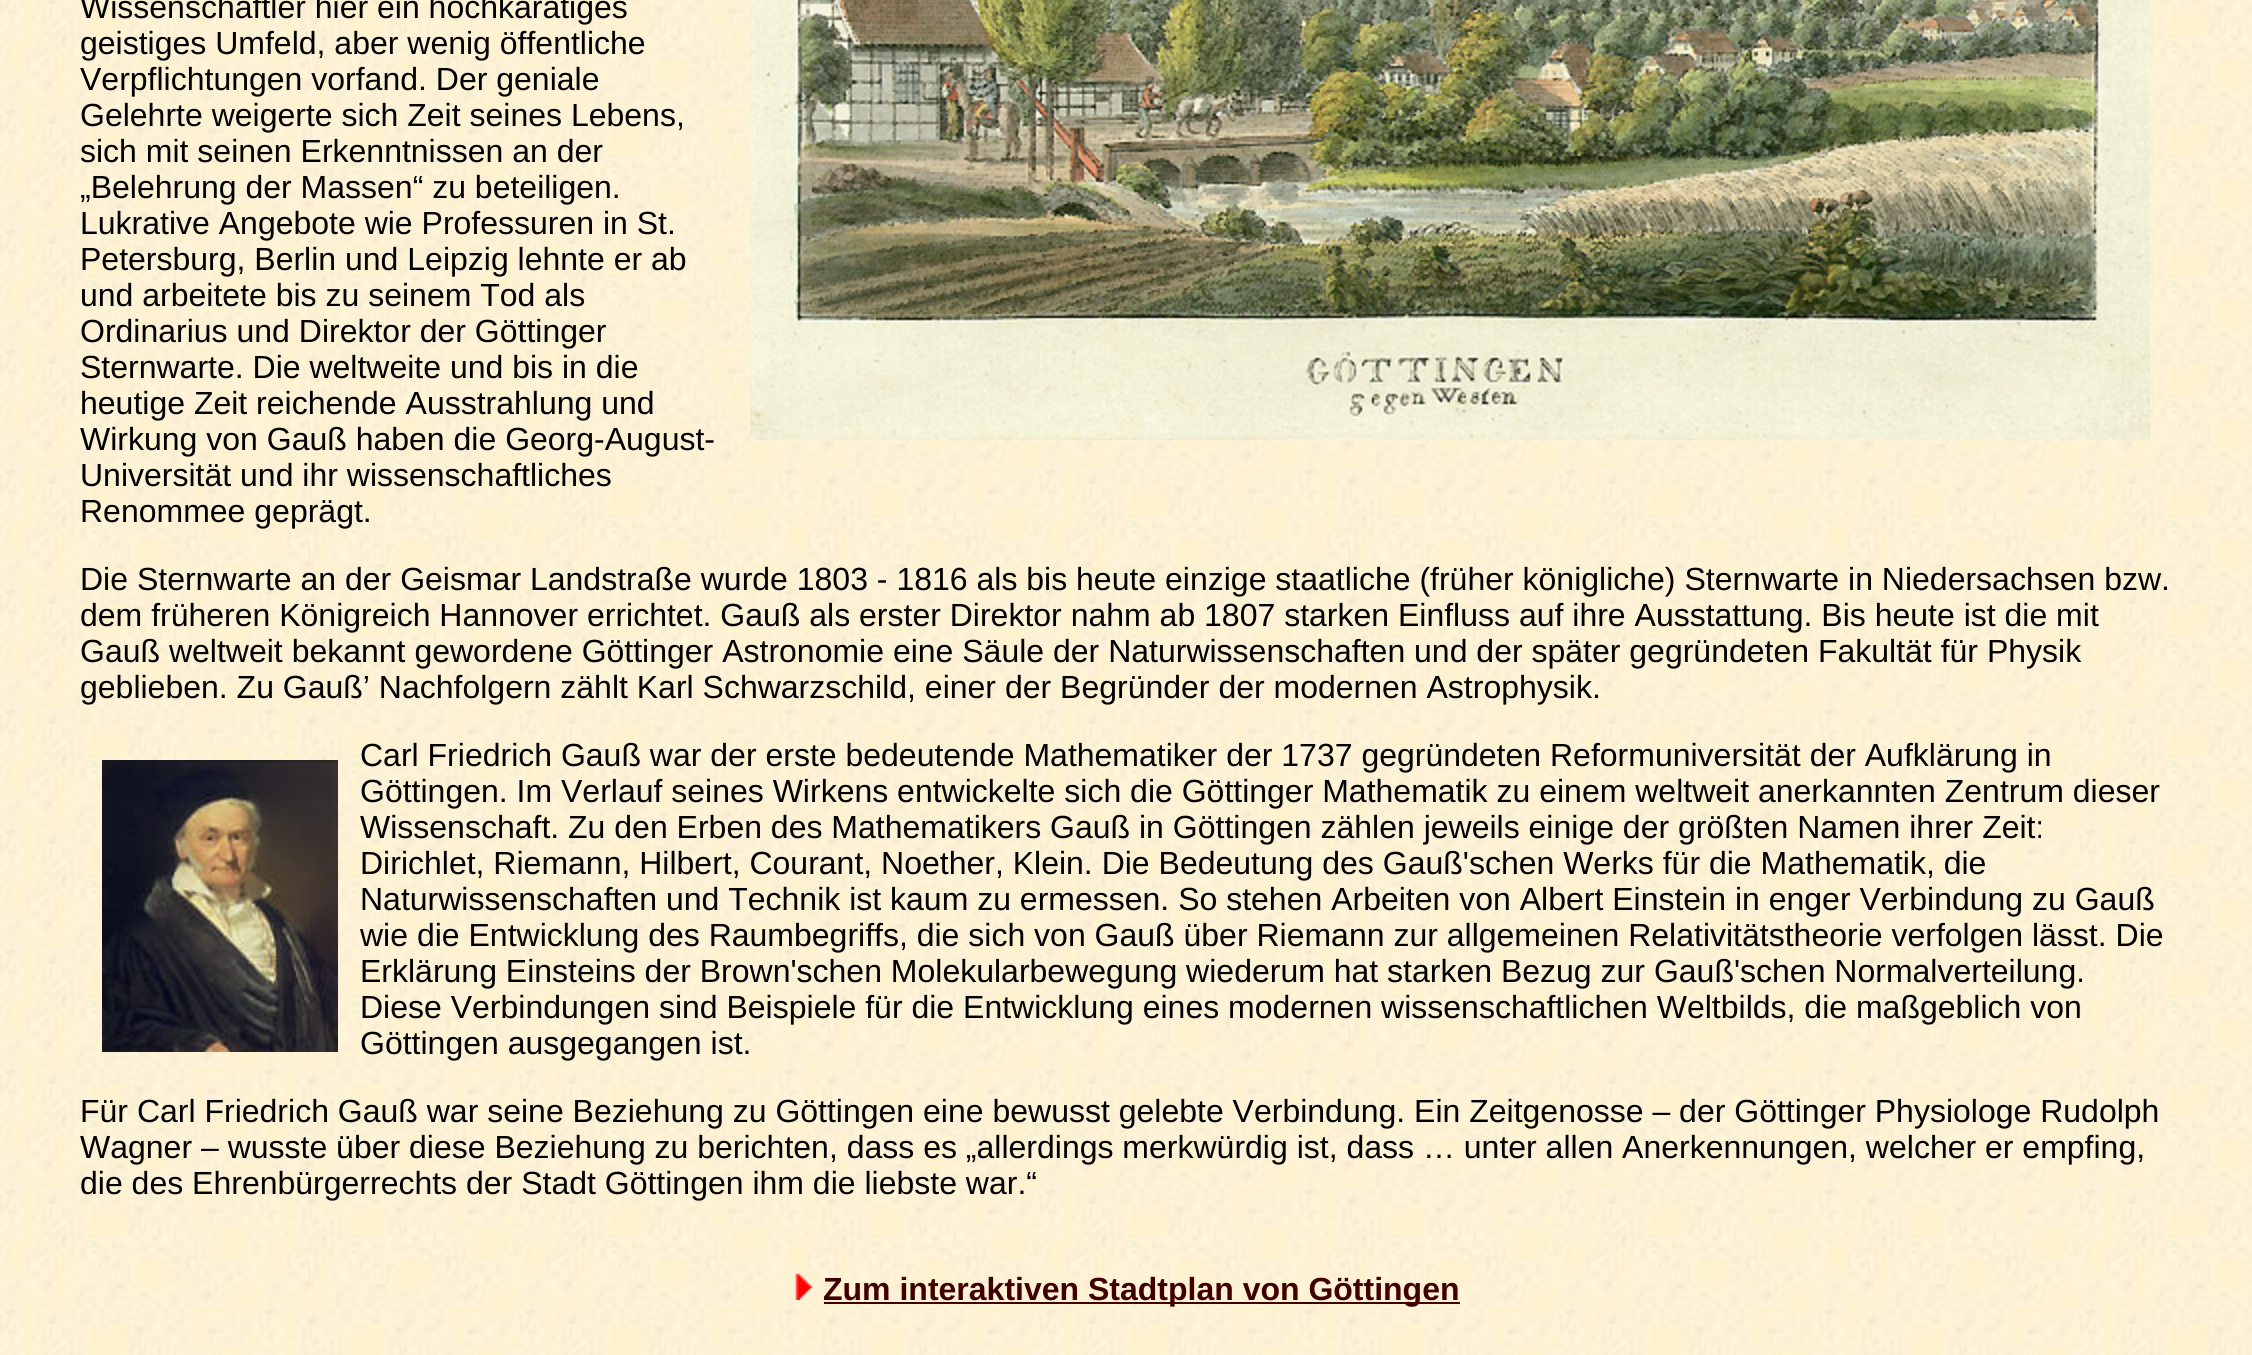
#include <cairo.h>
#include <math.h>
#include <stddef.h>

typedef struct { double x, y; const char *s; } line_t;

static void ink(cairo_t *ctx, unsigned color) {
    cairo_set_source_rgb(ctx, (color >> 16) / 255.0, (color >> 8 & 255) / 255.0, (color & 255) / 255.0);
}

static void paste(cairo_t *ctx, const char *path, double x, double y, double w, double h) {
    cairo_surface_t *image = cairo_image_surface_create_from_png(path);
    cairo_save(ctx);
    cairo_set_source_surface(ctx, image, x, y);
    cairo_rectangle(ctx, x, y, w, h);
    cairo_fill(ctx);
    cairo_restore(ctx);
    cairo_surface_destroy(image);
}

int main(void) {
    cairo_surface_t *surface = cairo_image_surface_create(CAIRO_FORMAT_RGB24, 2252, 1355);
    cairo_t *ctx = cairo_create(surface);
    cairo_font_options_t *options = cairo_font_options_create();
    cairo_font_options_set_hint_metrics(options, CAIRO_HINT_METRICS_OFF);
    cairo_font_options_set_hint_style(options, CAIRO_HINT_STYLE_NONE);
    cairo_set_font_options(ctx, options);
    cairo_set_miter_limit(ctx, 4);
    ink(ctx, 0xFFFFFF);
    cairo_paint(ctx);
    paste(ctx, "media/1.png", 0, 0, 2252, 1355);
    cairo_select_font_face(ctx, "Liberation Sans", CAIRO_FONT_SLANT_NORMAL, CAIRO_FONT_WEIGHT_NORMAL);
    cairo_set_font_size(ctx, 32);
    ink(ctx, 0x000000);
    cairo_move_to(ctx, 80, 18);
    cairo_show_text(ctx, "Wissenschaftler hier ein hochkarätiges");
    paste(ctx, "media/2.png", 750, 0, 1400, 440);
    {
        static const line_t items[] = {
            {80, 54, "geistiges Umfeld, aber wenig öffentliche"},
            {80, 90, "Verpflichtungen vorfand. Der geniale"},
            {80, 126, "Gelehrte weigerte sich Zeit seines Lebens,"},
            {80, 162, "sich mit seinen Erkenntnissen an der"},
            {80, 198, "„Belehrung der Massen“ zu beteiligen."},
            {80, 234, "Lukrative Angebote wie Professuren in St."},
            {80, 270, "Petersburg, Berlin und Leipzig lehnte er ab"},
            {80, 306, "und arbeitete bis zu seinem Tod als"},
            {80, 342, "Ordinarius und Direktor der Göttinger"},
            {80, 378, "Sternwarte. Die weltweite und bis in die"},
            {80, 414, "heutige Zeit reichende Ausstrahlung und"},
            {80, 450, "Wirkung von Gauß haben die Georg-August-"},
            {80, 486, "Universität und ihr wissenschaftliches"},
            {80, 522, "Renommee geprägt."},
            {80, 590, "Die Sternwarte an der Geismar Landstraße wurde 1803 - 1816 als bis heute einzige staatliche (früher königliche) Sternwarte in Niedersachsen bzw."},
            {80, 626, "dem früheren Königreich Hannover errichtet. Gauß als erster Direktor nahm ab 1807 starken Einfluss auf ihre Ausstattung. Bis heute ist die mit"},
            {80, 662, "Gauß weltweit bekannt gewordene Göttinger Astronomie eine Säule der Naturwissenschaften und der später gegründeten Fakultät für Physik"},
            {80, 698, "geblieben. Zu Gauß’ Nachfolgern zählt Karl Schwarzschild, einer der Begründer der modernen Astrophysik."},
        };
        for (size_t i = 0; i < sizeof items / sizeof *items; i++) {
            cairo_move_to(ctx, items[i].x, items[i].y);
            cairo_show_text(ctx, items[i].s);
        }
    }
    paste(ctx, "media/3.png", 102, 760, 236, 292);
    {
        static const line_t items[] = {
            {360, 766, "Carl Friedrich Gauß war der erste bedeutende Mathematiker der 1737 gegründeten Reformuniversität der Aufklärung in"},
            {360, 802, "Göttingen. Im Verlauf seines Wirkens entwickelte sich die Göttinger Mathematik zu einem weltweit anerkannten Zentrum dieser"},
            {360, 838, "Wissenschaft. Zu den Erben des Mathematikers Gauß in Göttingen zählen jeweils einige der größten Namen ihrer Zeit:"},
            {360, 874, "Dirichlet, Riemann, Hilbert, Courant, Noether, Klein. Die Bedeutung des Gauß'schen Werks für die Mathematik, die"},
            {360, 910, "Naturwissenschaften und Technik ist kaum zu ermessen. So stehen Arbeiten von Albert Einstein in enger Verbindung zu Gauß"},
            {360, 946, "wie die Entwicklung des Raumbegriffs, die sich von Gauß über Riemann zur allgemeinen Relativitätstheorie verfolgen lässt. Die"},
            {360, 982, "Erklärung Einsteins der Brown'schen Molekularbewegung wiederum hat starken Bezug zur Gauß'schen Normalverteilung."},
            {360, 1018, "Diese Verbindungen sind Beispiele für die Entwicklung eines modernen wissenschaftlichen Weltbilds, die maßgeblich von"},
            {360, 1054, "Göttingen ausgegangen ist."},
            {80, 1122, "Für Carl Friedrich Gauß war seine Beziehung zu Göttingen eine bewusst gelebte Verbindung. Ein Zeitgenosse – der Göttinger Physiologe Rudolph"},
            {80, 1158, "Wagner – wusste über diese Beziehung zu berichten, dass es „allerdings merkwürdig ist, dass … unter allen Anerkennungen, welcher er empfing,"},
            {80, 1194, "die des Ehrenbürgerrechts der Stadt Göttingen ihm die liebste war.“"},
        };
        for (size_t i = 0; i < sizeof items / sizeof *items; i++) {
            cairo_move_to(ctx, items[i].x, items[i].y);
            cairo_show_text(ctx, items[i].s);
        }
    }
    paste(ctx, "media/4.png", 795, 1273, 18, 27);
    ink(ctx, 0x400000);
    cairo_rectangle(ctx, 824, 1302, 636, 2);
    cairo_fill(ctx);
    cairo_select_font_face(ctx, "Liberation Sans", CAIRO_FONT_SLANT_NORMAL, CAIRO_FONT_WEIGHT_BOLD);
    cairo_move_to(ctx, 823, 1300);
    cairo_show_text(ctx, "Zum interaktiven Stadtplan von Göttingen");
    cairo_surface_write_to_png(surface, "image.png");
    cairo_font_options_destroy(options);
    cairo_destroy(ctx);
    cairo_surface_destroy(surface);
    return 0;
}
